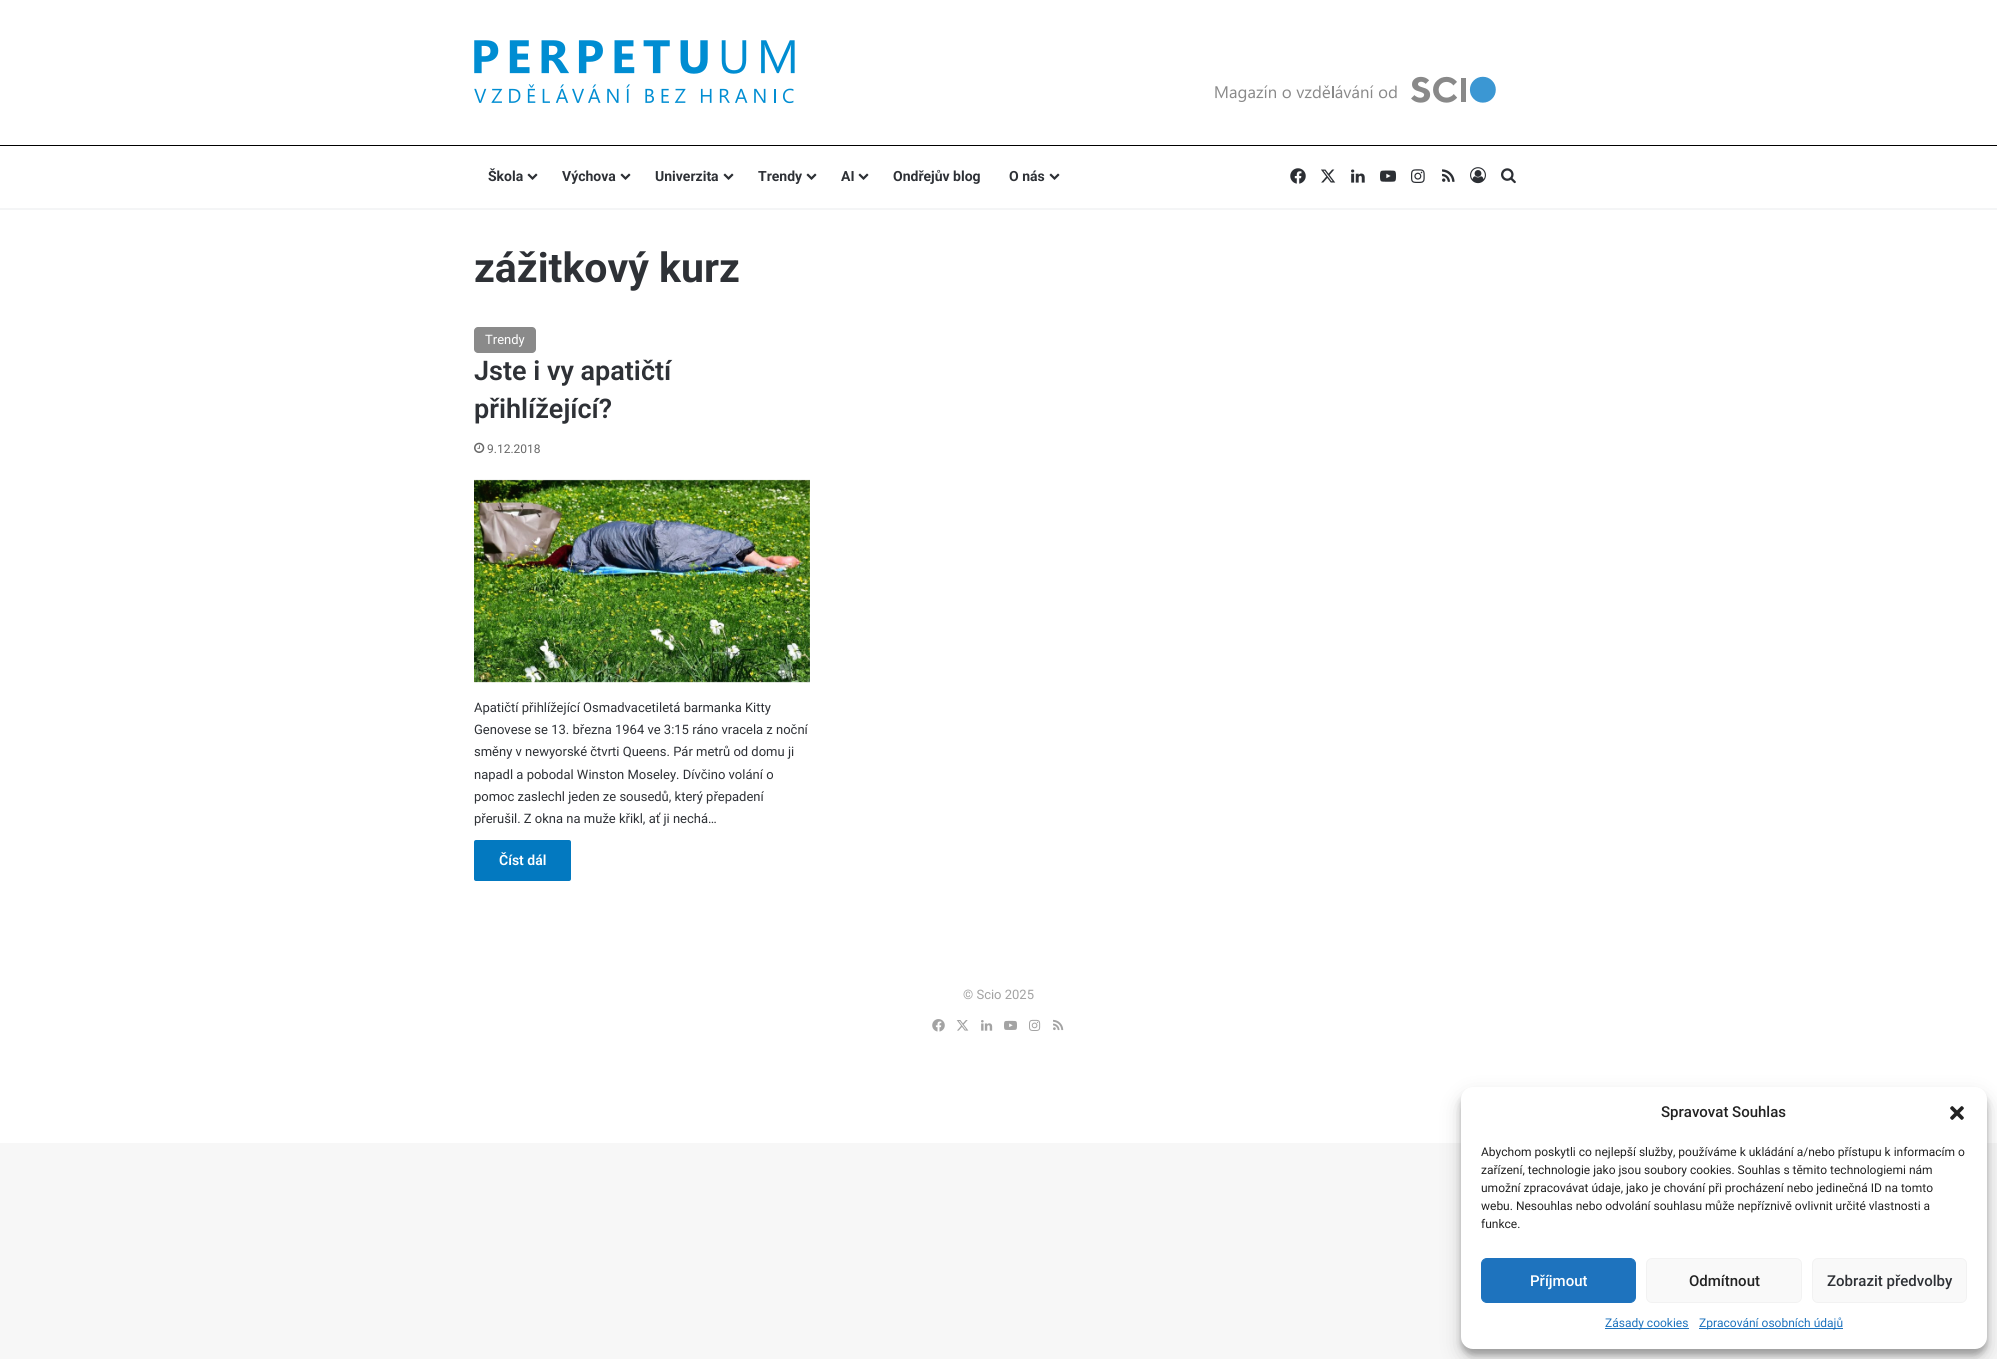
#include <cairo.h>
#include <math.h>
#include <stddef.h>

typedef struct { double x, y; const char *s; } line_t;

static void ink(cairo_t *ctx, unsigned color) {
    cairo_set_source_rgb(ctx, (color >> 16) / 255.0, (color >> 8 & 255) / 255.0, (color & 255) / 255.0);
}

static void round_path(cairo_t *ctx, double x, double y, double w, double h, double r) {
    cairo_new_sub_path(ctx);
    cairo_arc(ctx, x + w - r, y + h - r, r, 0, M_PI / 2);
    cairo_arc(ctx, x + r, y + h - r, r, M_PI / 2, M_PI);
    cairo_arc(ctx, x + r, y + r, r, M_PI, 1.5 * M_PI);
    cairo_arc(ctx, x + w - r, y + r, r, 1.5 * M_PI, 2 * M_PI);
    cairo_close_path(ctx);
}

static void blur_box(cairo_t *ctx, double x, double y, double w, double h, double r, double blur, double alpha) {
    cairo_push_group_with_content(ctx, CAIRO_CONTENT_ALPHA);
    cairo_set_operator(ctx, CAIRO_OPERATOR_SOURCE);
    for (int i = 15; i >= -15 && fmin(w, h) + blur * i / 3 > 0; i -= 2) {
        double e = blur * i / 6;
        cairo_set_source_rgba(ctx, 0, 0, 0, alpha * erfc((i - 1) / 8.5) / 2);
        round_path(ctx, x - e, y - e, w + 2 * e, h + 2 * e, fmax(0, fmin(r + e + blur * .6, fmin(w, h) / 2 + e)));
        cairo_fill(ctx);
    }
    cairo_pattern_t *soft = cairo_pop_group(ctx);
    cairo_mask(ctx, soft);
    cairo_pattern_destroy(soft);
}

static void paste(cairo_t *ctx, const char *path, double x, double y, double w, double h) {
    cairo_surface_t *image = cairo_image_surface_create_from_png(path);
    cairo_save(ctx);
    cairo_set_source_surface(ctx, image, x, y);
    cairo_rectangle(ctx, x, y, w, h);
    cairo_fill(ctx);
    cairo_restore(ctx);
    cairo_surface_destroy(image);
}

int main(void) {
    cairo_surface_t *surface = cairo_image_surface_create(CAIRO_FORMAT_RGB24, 1997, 1359);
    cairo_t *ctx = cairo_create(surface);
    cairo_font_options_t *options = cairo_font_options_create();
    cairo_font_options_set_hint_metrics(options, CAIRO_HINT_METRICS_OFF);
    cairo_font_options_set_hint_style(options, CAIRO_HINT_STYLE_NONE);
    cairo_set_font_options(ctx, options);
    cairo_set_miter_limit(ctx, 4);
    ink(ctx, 0xF7F7F7);
    cairo_paint(ctx);
    ink(ctx, 0xFFFFFF);
    cairo_rectangle(ctx, 0, 0, 1997, 1143);
    cairo_fill(ctx);
    paste(ctx, "media/1.png", 1215, 76, 281, 27);
    paste(ctx, "media/2.png", 474, 40, 321, 64);
    ink(ctx, 0x000000);
    cairo_rectangle(ctx, 0, 145, 1997, 1);
    cairo_fill(ctx);
    ink(ctx, 0xF4F5F6);
    cairo_rectangle(ctx, 0, 208, 1997, 2);
    cairo_fill(ctx);
    cairo_select_font_face(ctx, "Roboto", CAIRO_FONT_SLANT_NORMAL, CAIRO_FONT_WEIGHT_BOLD);
    cairo_set_font_size(ctx, 14);
    ink(ctx, 0x2E3136);
    cairo_move_to(ctx, 488, 181);
    cairo_show_text(ctx, "Škola");
    paste(ctx, "media/3.png", 527, 173, 11, 7);
    cairo_move_to(ctx, 562, 181);
    cairo_show_text(ctx, "Výchova");
    paste(ctx, "media/3.png", 620, 173, 11, 7);
    cairo_move_to(ctx, 655, 181);
    cairo_show_text(ctx, "Univerzita");
    paste(ctx, "media/3.png", 723, 173, 11, 7);
    cairo_move_to(ctx, 758, 181);
    cairo_show_text(ctx, "Trendy");
    paste(ctx, "media/3.png", 806, 173, 11, 7);
    cairo_move_to(ctx, 841, 181);
    cairo_show_text(ctx, "AI");
    paste(ctx, "media/3.png", 858, 173, 11, 7);
    cairo_move_to(ctx, 893, 181);
    cairo_show_text(ctx, "Ondřejův blog");
    cairo_move_to(ctx, 1009, 181);
    cairo_show_text(ctx, "O nás");
    paste(ctx, "media/3.png", 1049, 173, 11, 7);
    paste(ctx, "media/4.png", 1290, 168, 16, 16);
    paste(ctx, "media/5.png", 1321, 169, 15, 14);
    paste(ctx, "media/6.png", 1351, 169, 14, 14);
    paste(ctx, "media/7.png", 1380, 170, 16, 12);
    paste(ctx, "media/8.png", 1411, 169, 14, 14);
    paste(ctx, "media/9.png", 1442, 169, 13, 13);
    paste(ctx, "media/10.png", 1470, 167, 16, 17);
    paste(ctx, "media/11.png", 1501, 168, 15, 16);
    cairo_set_font_size(ctx, 41);
    cairo_move_to(ctx, 474, 282);
    cairo_show_text(ctx, "zážitkový kurz");
    ink(ctx, 0x8A8A8A);
    round_path(ctx, 474, 327, 62, 26, 4);
    cairo_fill(ctx);
    cairo_select_font_face(ctx, "Roboto", CAIRO_FONT_SLANT_NORMAL, CAIRO_FONT_WEIGHT_NORMAL);
    cairo_set_font_size(ctx, 13);
    ink(ctx, 0xFFFFFF);
    cairo_move_to(ctx, 485, 344);
    cairo_show_text(ctx, "Trendy");
    cairo_select_font_face(ctx, "Roboto SemiBold", CAIRO_FONT_SLANT_NORMAL, CAIRO_FONT_WEIGHT_NORMAL);
    cairo_set_font_size(ctx, 27);
    ink(ctx, 0x2E3136);
    cairo_move_to(ctx, 474, 380);
    cairo_show_text(ctx, "Jste i vy apatičtí");
    cairo_move_to(ctx, 474, 418);
    cairo_show_text(ctx, "přihlížející?");
    paste(ctx, "media/12.png", 474, 442, 11, 11);
    cairo_select_font_face(ctx, "Roboto", CAIRO_FONT_SLANT_NORMAL, CAIRO_FONT_WEIGHT_NORMAL);
    cairo_set_font_size(ctx, 12);
    ink(ctx, 0x686868);
    cairo_move_to(ctx, 487, 453);
    cairo_show_text(ctx, "9.12.2018");
    paste(ctx, "media/13.png", 474, 479, 336, 204);
    cairo_set_font_size(ctx, 13);
    ink(ctx, 0x2E3136);
    {
        static const line_t items[] = {
            {474, 712, "Apatičtí přihlížející Osmadvacetiletá barmanka Kitty"},
            {474, 734, "Genovese se 13. března 1964 ve 3:15 ráno vracela z noční"},
            {474, 756, "směny v newyorské čtvrti Queens. Pár metrů od domu ji"},
            {474, 779, "napadl a pobodal Winston Moseley. Dívčino volání o"},
            {474, 801, "pomoc zaslechl jeden ze sousedů, který přepadení"},
            {474, 823, "přerušil. Z okna na muže křikl, ať ji nechá…"},
        };
        for (size_t i = 0; i < sizeof items / sizeof *items; i++) {
            cairo_move_to(ctx, items[i].x, items[i].y);
            cairo_show_text(ctx, items[i].s);
        }
    }
    ink(ctx, 0x0379C0);
    round_path(ctx, 474, 840, 97, 41, 2);
    cairo_fill(ctx);
    cairo_select_font_face(ctx, "Roboto SemiBold", CAIRO_FONT_SLANT_NORMAL, CAIRO_FONT_WEIGHT_NORMAL);
    cairo_set_font_size(ctx, 14);
    ink(ctx, 0xFFFFFF);
    cairo_move_to(ctx, 499, 865);
    cairo_show_text(ctx, "Číst dál");
    cairo_select_font_face(ctx, "Roboto", CAIRO_FONT_SLANT_NORMAL, CAIRO_FONT_WEIGHT_NORMAL);
    cairo_set_font_size(ctx, 13);
    ink(ctx, 0xA3A3A3);
    cairo_move_to(ctx, 963, 999);
    cairo_show_text(ctx, "© Scio 2025");
    paste(ctx, "media/14.png", 932, 1019, 13, 13);
    paste(ctx, "media/15.png", 956, 1020, 13, 11);
    paste(ctx, "media/16.png", 981, 1020, 12, 11);
    paste(ctx, "media/17.png", 1004, 1020, 13, 10);
    paste(ctx, "media/18.png", 1029, 1019, 12, 12);
    paste(ctx, "media/19.png", 1053, 1019, 11, 12);
    ink(ctx, 0x000000);
    blur_box(ctx, 1461, 1093, 526, 262, 12, 3, 0.23);
    blur_box(ctx, 1461, 1097, 526, 262, 12, 10, 0.19);
    ink(ctx, 0xFFFFFF);
    round_path(ctx, 1461, 1087, 526, 262, 12);
    cairo_fill(ctx);
    cairo_select_font_face(ctx, "Roboto Medium", CAIRO_FONT_SLANT_NORMAL, CAIRO_FONT_WEIGHT_NORMAL);
    cairo_set_font_size(ctx, 15);
    ink(ctx, 0x222222);
    cairo_move_to(ctx, 1661, 1117);
    cairo_show_text(ctx, "Spravovat Souhlas");
    paste(ctx, "media/20.png", 1950, 1106, 14, 14);
    cairo_select_font_face(ctx, "Roboto", CAIRO_FONT_SLANT_NORMAL, CAIRO_FONT_WEIGHT_NORMAL);
    cairo_set_font_size(ctx, 12);
    {
        static const line_t items[] = {
            {1481, 1156, "Abychom poskytli co nejlepší služby, používáme k ukládání a/nebo přístupu k informacím o"},
            {1481, 1174, "zařízení, technologie jako jsou soubory cookies. Souhlas s těmito technologiemi nám"},
            {1481, 1192, "umožní zpracovávat údaje, jako je chování při procházení nebo jedinečná ID na tomto"},
            {1481, 1210, "webu. Nesouhlas nebo odvolání souhlasu může nepříznivě ovlivnit určité vlastnosti a"},
            {1481, 1228, "funkce."},
        };
        for (size_t i = 0; i < sizeof items / sizeof *items; i++) {
            cairo_move_to(ctx, items[i].x, items[i].y);
            cairo_show_text(ctx, items[i].s);
        }
    }
    ink(ctx, 0x1E73BE);
    round_path(ctx, 1481.5, 1258.5, 154, 44, 5.5);
    cairo_fill_preserve(ctx);
    cairo_set_line_width(ctx, 1);
    cairo_stroke(ctx);
    cairo_select_font_face(ctx, "Roboto Medium", CAIRO_FONT_SLANT_NORMAL, CAIRO_FONT_WEIGHT_NORMAL);
    cairo_set_font_size(ctx, 15);
    ink(ctx, 0xFFFFFF);
    cairo_move_to(ctx, 1530, 1286);
    cairo_show_text(ctx, "Příjmout");
    ink(ctx, 0xF9F9F9);
    round_path(ctx, 1646.5, 1258.5, 155, 44, 5.5);
    cairo_fill_preserve(ctx);
    ink(ctx, 0xF2F2F2);
    cairo_stroke(ctx);
    ink(ctx, 0x222222);
    cairo_move_to(ctx, 1689, 1286);
    cairo_show_text(ctx, "Odmítnout");
    ink(ctx, 0xF9F9F9);
    round_path(ctx, 1812.5, 1258.5, 154, 44, 5.5);
    cairo_fill_preserve(ctx);
    ink(ctx, 0xF2F2F2);
    cairo_stroke(ctx);
    ink(ctx, 0x2E3136);
    cairo_move_to(ctx, 1827, 1286);
    cairo_show_text(ctx, "Zobrazit předvolby");
    ink(ctx, 0x1E73BE);
    cairo_rectangle(ctx, 1605, 1328, 84, 1);
    cairo_fill(ctx);
    cairo_select_font_face(ctx, "Roboto", CAIRO_FONT_SLANT_NORMAL, CAIRO_FONT_WEIGHT_NORMAL);
    cairo_set_font_size(ctx, 12);
    cairo_move_to(ctx, 1605, 1327);
    cairo_show_text(ctx, "Zásady cookies");
    cairo_rectangle(ctx, 1699, 1328, 144, 1);
    cairo_fill(ctx);
    cairo_move_to(ctx, 1699, 1327);
    cairo_show_text(ctx, "Zpracování osobních údajů");
    cairo_surface_write_to_png(surface, "image.png");
    cairo_font_options_destroy(options);
    cairo_destroy(ctx);
    cairo_surface_destroy(surface);
    return 0;
}
